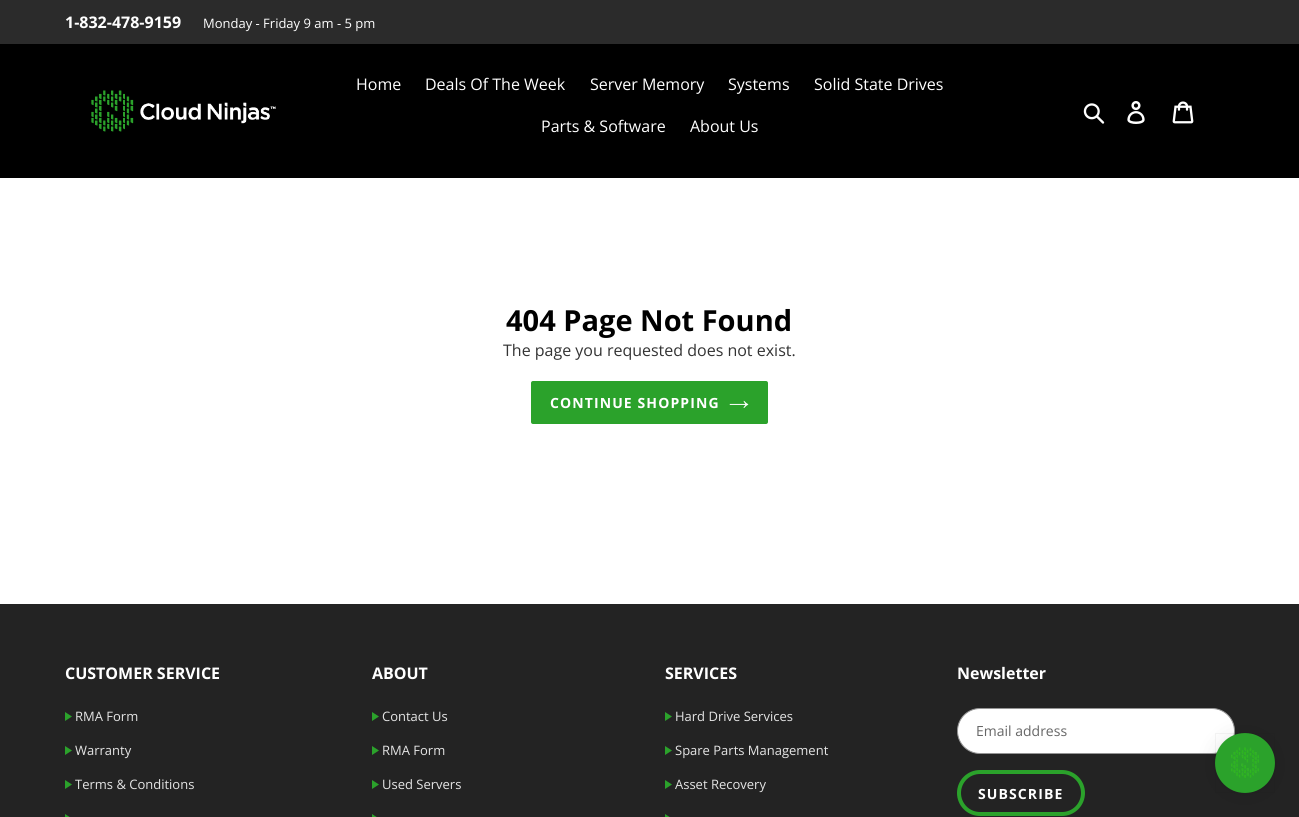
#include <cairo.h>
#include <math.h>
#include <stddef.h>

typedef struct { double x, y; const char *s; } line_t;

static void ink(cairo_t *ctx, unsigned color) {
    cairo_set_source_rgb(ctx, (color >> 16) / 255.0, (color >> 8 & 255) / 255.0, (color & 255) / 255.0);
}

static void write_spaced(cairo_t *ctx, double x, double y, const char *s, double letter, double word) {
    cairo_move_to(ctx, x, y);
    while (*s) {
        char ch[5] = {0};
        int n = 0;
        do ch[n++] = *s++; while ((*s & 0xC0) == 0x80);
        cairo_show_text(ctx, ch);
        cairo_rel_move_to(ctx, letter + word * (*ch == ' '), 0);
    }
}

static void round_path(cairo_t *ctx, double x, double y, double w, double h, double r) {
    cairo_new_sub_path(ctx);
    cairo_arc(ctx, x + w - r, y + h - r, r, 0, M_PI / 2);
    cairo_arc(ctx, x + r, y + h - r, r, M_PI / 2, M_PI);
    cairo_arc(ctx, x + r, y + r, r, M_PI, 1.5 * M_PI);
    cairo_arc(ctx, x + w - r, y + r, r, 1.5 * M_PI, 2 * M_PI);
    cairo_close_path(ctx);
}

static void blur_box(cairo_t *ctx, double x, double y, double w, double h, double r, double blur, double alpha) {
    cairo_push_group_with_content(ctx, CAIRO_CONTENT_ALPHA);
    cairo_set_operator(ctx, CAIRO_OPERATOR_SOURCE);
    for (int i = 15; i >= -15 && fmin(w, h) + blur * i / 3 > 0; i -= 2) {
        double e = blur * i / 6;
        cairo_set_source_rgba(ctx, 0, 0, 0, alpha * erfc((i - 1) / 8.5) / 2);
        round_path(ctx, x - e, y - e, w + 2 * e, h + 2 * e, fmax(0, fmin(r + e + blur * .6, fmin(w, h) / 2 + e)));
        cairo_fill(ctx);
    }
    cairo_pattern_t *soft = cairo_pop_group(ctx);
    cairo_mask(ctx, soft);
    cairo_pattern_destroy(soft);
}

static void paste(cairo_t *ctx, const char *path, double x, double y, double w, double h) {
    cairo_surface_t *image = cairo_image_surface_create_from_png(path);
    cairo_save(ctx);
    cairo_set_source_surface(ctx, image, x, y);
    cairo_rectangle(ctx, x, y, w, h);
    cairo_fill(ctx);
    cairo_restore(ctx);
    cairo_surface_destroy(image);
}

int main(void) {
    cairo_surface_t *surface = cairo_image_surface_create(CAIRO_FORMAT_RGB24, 1299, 817);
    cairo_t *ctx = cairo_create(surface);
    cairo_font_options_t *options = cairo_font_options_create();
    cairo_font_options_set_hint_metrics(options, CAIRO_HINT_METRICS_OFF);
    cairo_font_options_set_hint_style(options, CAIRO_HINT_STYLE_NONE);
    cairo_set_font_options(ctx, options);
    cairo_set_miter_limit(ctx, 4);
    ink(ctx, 0xFFFFFF);
    cairo_paint(ctx);
    ink(ctx, 0x2B2B2B);
    cairo_rectangle(ctx, 0, 0, 1299, 44);
    cairo_fill(ctx);
    cairo_select_font_face(ctx, "Open Sans", CAIRO_FONT_SLANT_NORMAL, CAIRO_FONT_WEIGHT_BOLD);
    cairo_set_font_size(ctx, 16);
    ink(ctx, 0xFFFFFF);
    cairo_move_to(ctx, 65, 28);
    cairo_show_text(ctx, "1-832-478-9159");
    cairo_select_font_face(ctx, "Open Sans", CAIRO_FONT_SLANT_NORMAL, CAIRO_FONT_WEIGHT_NORMAL);
    cairo_set_font_size(ctx, 13);
    cairo_move_to(ctx, 203, 28);
    cairo_show_text(ctx, "Monday - Friday 9 am - 5 pm");
    ink(ctx, 0x000000);
    cairo_rectangle(ctx, 0, 44, 1299, 134);
    cairo_fill(ctx);
    paste(ctx, "media/1.png", 91, 90, 185, 42);
    cairo_set_font_size(ctx, 16);
    ink(ctx, 0xFFFFFF);
    {
        static const line_t items[] = {
            {356, 90, "Home"},
            {425, 90, "Deals Of The Week"},
            {590, 90, "Server Memory"},
            {728, 90, "Systems"},
            {814, 90, "Solid State Drives"},
            {541, 132, "Parts & Software"},
            {690, 132, "About Us"},
        };
        for (size_t i = 0; i < sizeof items / sizeof *items; i++) {
            cairo_move_to(ctx, items[i].x, items[i].y);
            cairo_show_text(ctx, items[i].s);
        }
    }
    paste(ctx, "media/2.png", 1083, 103, 22, 21);
    paste(ctx, "media/3.png", 1127, 101, 18, 23);
    paste(ctx, "media/4.png", 1172, 101, 22, 23);
    cairo_select_font_face(ctx, "Open Sans", CAIRO_FONT_SLANT_NORMAL, CAIRO_FONT_WEIGHT_BOLD);
    cairo_set_font_size(ctx, 29);
    ink(ctx, 0x000000);
    cairo_move_to(ctx, 506, 331);
    cairo_show_text(ctx, "404 Page Not Found");
    cairo_select_font_face(ctx, "Open Sans", CAIRO_FONT_SLANT_NORMAL, CAIRO_FONT_WEIGHT_NORMAL);
    cairo_set_font_size(ctx, 16);
    ink(ctx, 0x333333);
    cairo_move_to(ctx, 503, 356);
    cairo_show_text(ctx, "The page you requested does not exist.");
    ink(ctx, 0x2BA22B);
    round_path(ctx, 531, 381, 237, 43, 2);
    cairo_fill(ctx);
    cairo_select_font_face(ctx, "Open Sans", CAIRO_FONT_SLANT_NORMAL, CAIRO_FONT_WEIGHT_BOLD);
    cairo_set_font_size(ctx, 14);
    ink(ctx, 0xFFFFFF);
    write_spaced(ctx, 550, 408, "CONTINUE SHOPPING", 1.1, 0);
    paste(ctx, "media/5.png", 729, 400, 20, 8);
    ink(ctx, 0x232323);
    cairo_rectangle(ctx, 0, 604, 1299, 213);
    cairo_fill(ctx);
    cairo_set_font_size(ctx, 16);
    ink(ctx, 0xFFFFFF);
    cairo_move_to(ctx, 65, 679);
    cairo_show_text(ctx, "CUSTOMER SERVICE");
    paste(ctx, "media/6.png", 65, 712, 7, 9);
    cairo_select_font_face(ctx, "Open Sans", CAIRO_FONT_SLANT_NORMAL, CAIRO_FONT_WEIGHT_NORMAL);
    cairo_set_font_size(ctx, 13);
    ink(ctx, 0xE5E5E5);
    cairo_move_to(ctx, 75, 721);
    cairo_show_text(ctx, "RMA Form");
    paste(ctx, "media/6.png", 65, 746, 7, 9);
    cairo_move_to(ctx, 75, 755);
    cairo_show_text(ctx, "Warranty");
    paste(ctx, "media/6.png", 65, 780, 7, 9);
    cairo_move_to(ctx, 75, 789);
    cairo_show_text(ctx, "Terms & Conditions");
    paste(ctx, "media/7.png", 65, 814, 5, 3);
    cairo_select_font_face(ctx, "Open Sans", CAIRO_FONT_SLANT_NORMAL, CAIRO_FONT_WEIGHT_BOLD);
    cairo_set_font_size(ctx, 16);
    ink(ctx, 0xFFFFFF);
    cairo_move_to(ctx, 372, 679);
    cairo_show_text(ctx, "ABOUT");
    paste(ctx, "media/6.png", 372, 712, 7, 9);
    cairo_select_font_face(ctx, "Open Sans", CAIRO_FONT_SLANT_NORMAL, CAIRO_FONT_WEIGHT_NORMAL);
    cairo_set_font_size(ctx, 13);
    ink(ctx, 0xE5E5E5);
    cairo_move_to(ctx, 382, 721);
    cairo_show_text(ctx, "Contact Us");
    paste(ctx, "media/6.png", 372, 746, 7, 9);
    cairo_move_to(ctx, 382, 755);
    cairo_show_text(ctx, "RMA Form");
    paste(ctx, "media/6.png", 372, 780, 7, 9);
    cairo_move_to(ctx, 382, 789);
    cairo_show_text(ctx, "Used Servers");
    paste(ctx, "media/7.png", 372, 814, 5, 3);
    cairo_select_font_face(ctx, "Open Sans", CAIRO_FONT_SLANT_NORMAL, CAIRO_FONT_WEIGHT_BOLD);
    cairo_set_font_size(ctx, 16);
    ink(ctx, 0xFFFFFF);
    cairo_move_to(ctx, 665, 679);
    cairo_show_text(ctx, "SERVICES");
    paste(ctx, "media/6.png", 665, 712, 7, 9);
    cairo_select_font_face(ctx, "Open Sans", CAIRO_FONT_SLANT_NORMAL, CAIRO_FONT_WEIGHT_NORMAL);
    cairo_set_font_size(ctx, 13);
    ink(ctx, 0xE5E5E5);
    cairo_move_to(ctx, 675, 721);
    cairo_show_text(ctx, "Hard Drive Services");
    paste(ctx, "media/6.png", 665, 746, 7, 9);
    cairo_move_to(ctx, 675, 755);
    cairo_show_text(ctx, "Spare Parts Management");
    paste(ctx, "media/6.png", 665, 780, 7, 9);
    cairo_move_to(ctx, 675, 789);
    cairo_show_text(ctx, "Asset Recovery");
    paste(ctx, "media/7.png", 665, 814, 5, 3);
    cairo_select_font_face(ctx, "Open Sans", CAIRO_FONT_SLANT_NORMAL, CAIRO_FONT_WEIGHT_BOLD);
    cairo_set_font_size(ctx, 16);
    ink(ctx, 0xFFFFFF);
    cairo_move_to(ctx, 957, 679);
    cairo_show_text(ctx, "Newsletter");
    round_path(ctx, 957.5, 708.5, 277, 45, 22.5);
    cairo_fill_preserve(ctx);
    ink(ctx, 0x949494);
    cairo_set_line_width(ctx, 1);
    cairo_stroke(ctx);
    cairo_select_font_face(ctx, "Open Sans", CAIRO_FONT_SLANT_NORMAL, CAIRO_FONT_WEIGHT_NORMAL);
    cairo_set_font_size(ctx, 14);
    ink(ctx, 0x666666);
    cairo_move_to(ctx, 976, 736);
    cairo_show_text(ctx, "Email address");
    round_path(ctx, 959, 772, 124, 42, 21);
    ink(ctx, 0x2BA22B);
    cairo_set_line_width(ctx, 4);
    cairo_stroke(ctx);
    cairo_select_font_face(ctx, "Open Sans", CAIRO_FONT_SLANT_NORMAL, CAIRO_FONT_WEIGHT_BOLD);
    ink(ctx, 0xFFFFFF);
    write_spaced(ctx, 978, 799, "SUBSCRIBE", 1.1, 0);
    ink(ctx, 0x000000);
    blur_box(ctx, 1215, 735, 60, 60, 30, 12, 0.08);
    blur_box(ctx, 1215, 734, 60, 60, 30, 3, 0.06);
    ink(ctx, 0x2BA22B);
    cairo_arc(ctx, 1245, 763, 30, 0, 2 * M_PI);
    cairo_fill(ctx);
    cairo_rectangle(ctx, 1215.5, 733.5, 59, 59);
    cairo_set_source_rgba(ctx, 0, 0, 0, 0.04);
    cairo_set_line_width(ctx, 1);
    cairo_stroke(ctx);
    paste(ctx, "media/8.png", 1231, 747, 28, 31);
    cairo_surface_write_to_png(surface, "image.png");
    cairo_font_options_destroy(options);
    cairo_destroy(ctx);
    cairo_surface_destroy(surface);
    return 0;
}
